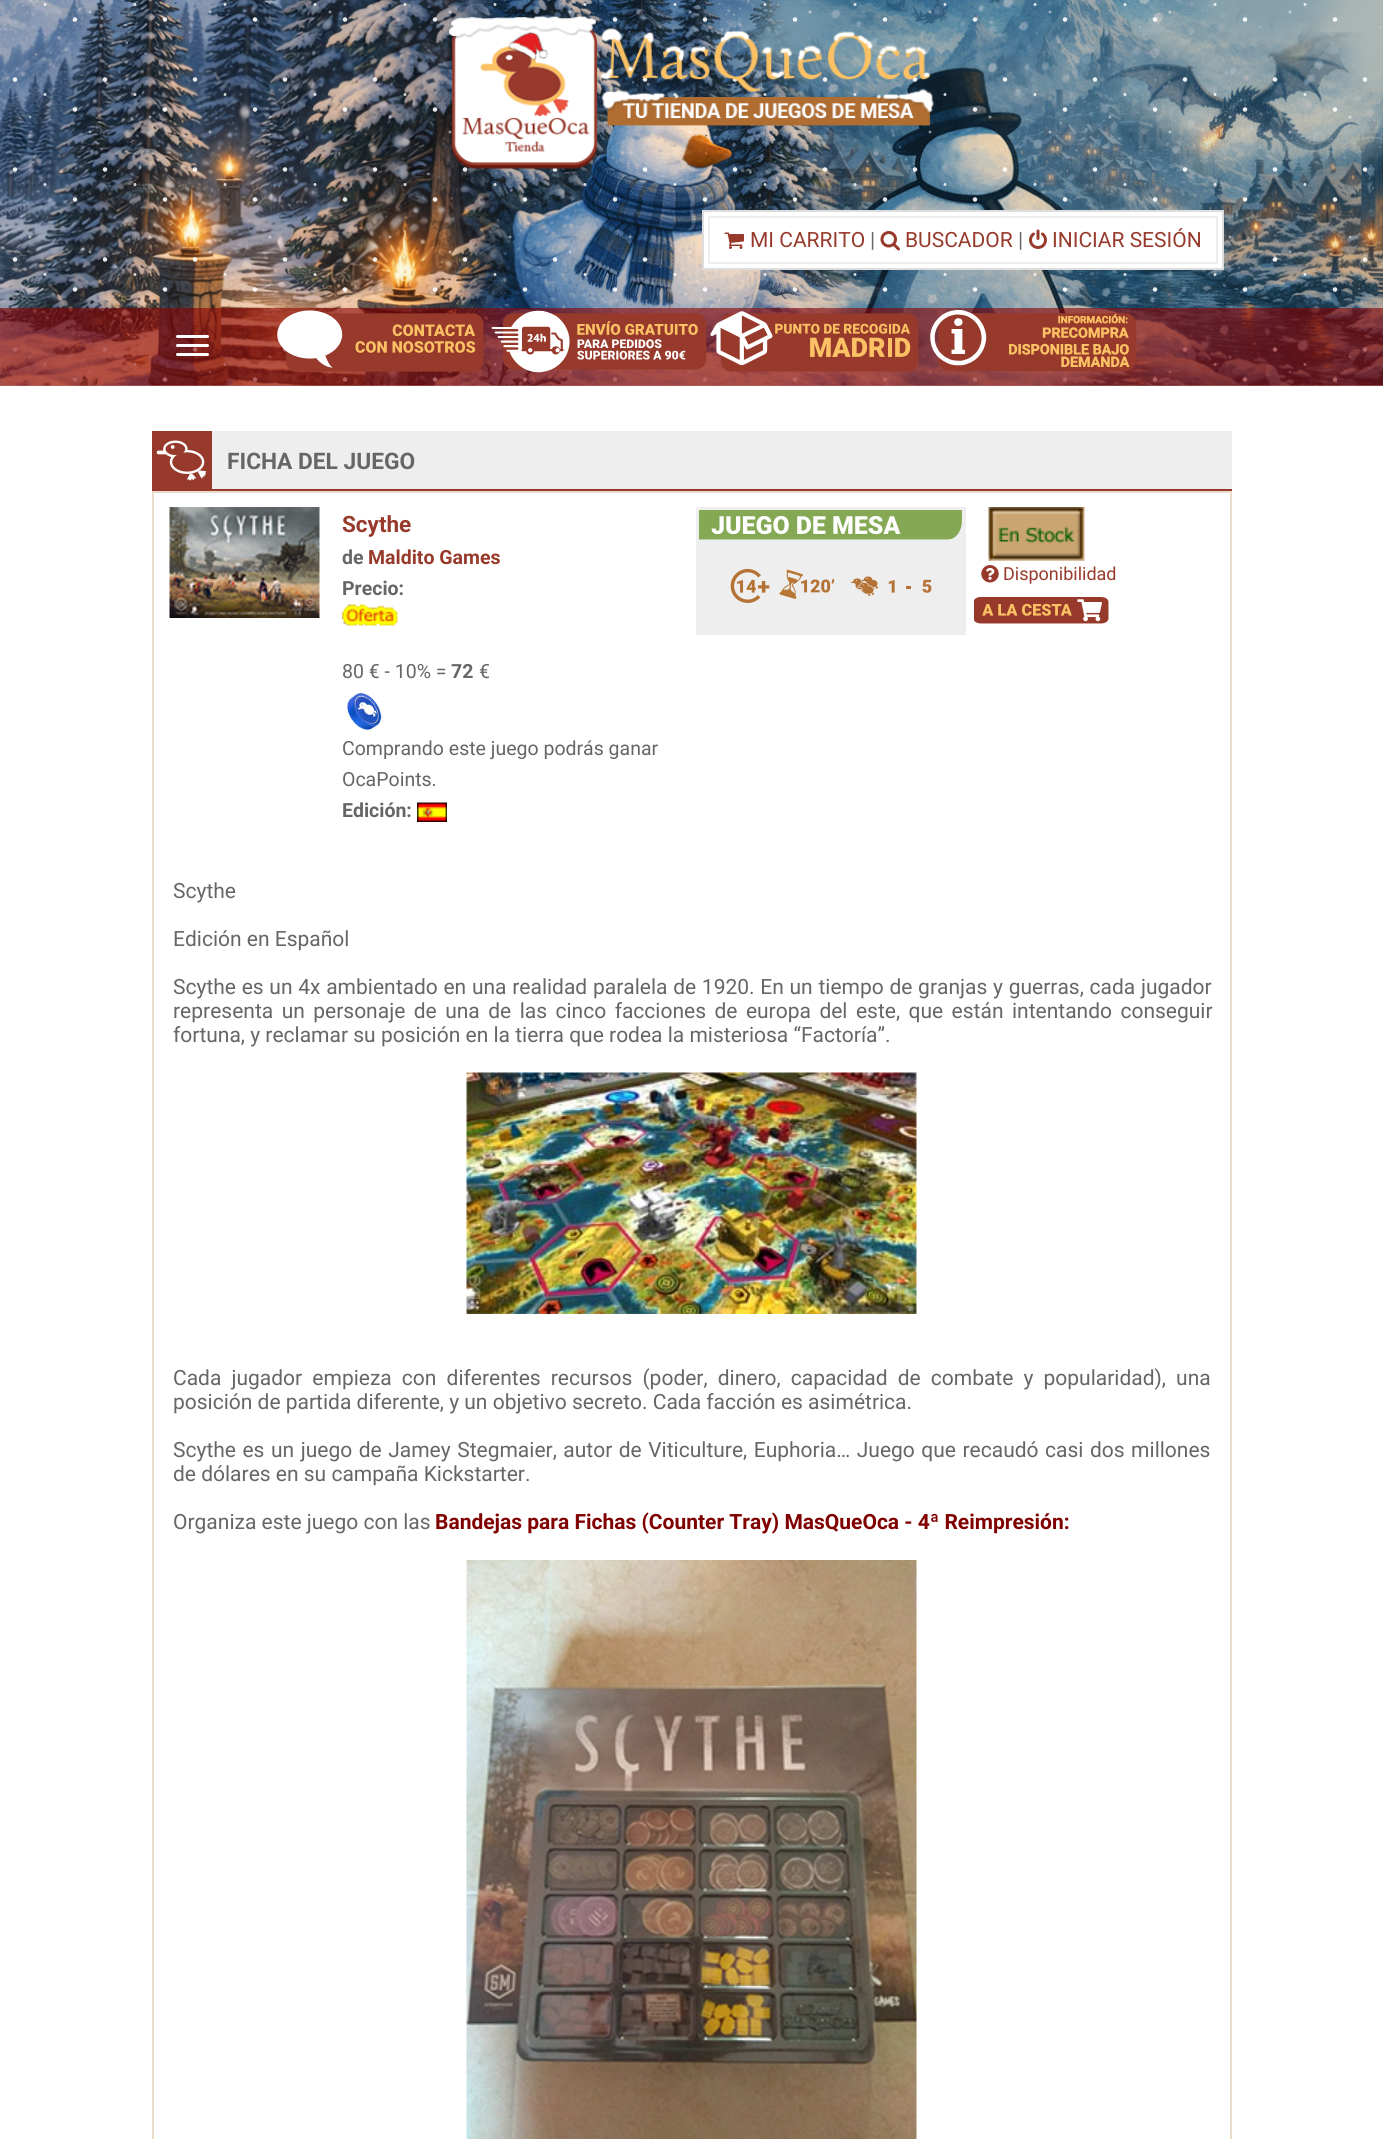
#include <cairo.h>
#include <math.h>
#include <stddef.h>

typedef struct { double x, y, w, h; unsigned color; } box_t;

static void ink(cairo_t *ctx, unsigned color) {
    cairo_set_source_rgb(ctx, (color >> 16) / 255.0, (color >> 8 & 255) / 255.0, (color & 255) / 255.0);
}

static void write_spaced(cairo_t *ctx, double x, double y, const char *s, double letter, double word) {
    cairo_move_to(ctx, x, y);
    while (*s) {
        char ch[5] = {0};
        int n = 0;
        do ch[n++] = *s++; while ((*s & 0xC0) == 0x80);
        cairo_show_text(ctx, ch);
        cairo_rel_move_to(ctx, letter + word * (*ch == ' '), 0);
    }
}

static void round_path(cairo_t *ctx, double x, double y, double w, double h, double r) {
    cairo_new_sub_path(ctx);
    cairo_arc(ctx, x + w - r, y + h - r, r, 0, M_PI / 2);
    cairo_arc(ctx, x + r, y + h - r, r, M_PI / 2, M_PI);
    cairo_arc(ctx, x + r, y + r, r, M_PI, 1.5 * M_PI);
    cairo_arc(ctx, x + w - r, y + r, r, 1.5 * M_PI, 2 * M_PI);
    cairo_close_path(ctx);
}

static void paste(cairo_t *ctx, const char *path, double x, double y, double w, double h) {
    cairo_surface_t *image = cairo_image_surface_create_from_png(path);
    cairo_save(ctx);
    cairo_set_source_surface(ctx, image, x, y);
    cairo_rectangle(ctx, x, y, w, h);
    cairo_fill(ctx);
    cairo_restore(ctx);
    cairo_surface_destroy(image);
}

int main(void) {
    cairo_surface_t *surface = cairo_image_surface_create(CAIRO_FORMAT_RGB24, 1383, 2139);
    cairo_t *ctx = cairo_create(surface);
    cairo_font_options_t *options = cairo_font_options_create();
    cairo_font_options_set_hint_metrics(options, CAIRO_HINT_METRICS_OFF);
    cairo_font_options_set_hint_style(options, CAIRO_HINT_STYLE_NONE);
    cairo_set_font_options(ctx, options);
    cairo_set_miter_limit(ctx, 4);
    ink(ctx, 0xFFFFFF);
    cairo_paint(ctx);
    paste(ctx, "media/1.png", 0, 0, 1383, 386);
    cairo_new_path(ctx);
    cairo_move_to(ctx, 75, 19.5);
    cairo_line_to(ctx, 1335.3, 19.5);
    cairo_set_source_rgba(ctx, 1, 1, 1, 0.9);
    cairo_set_line_width(ctx, 4.5);
    cairo_set_line_cap(ctx, CAIRO_LINE_CAP_ROUND);
    cairo_set_dash(ctx, (double[]){0, 90}, 2, 0);
    cairo_stroke(ctx);
    cairo_new_path(ctx);
    cairo_move_to(ctx, 75, 109.5);
    cairo_line_to(ctx, 1335.3, 109.5);
    cairo_stroke(ctx);
    cairo_new_path(ctx);
    cairo_move_to(ctx, 75, 199.5);
    cairo_line_to(ctx, 1335.3, 199.5);
    cairo_stroke(ctx);
    cairo_new_path(ctx);
    cairo_move_to(ctx, 75, 289.5);
    cairo_line_to(ctx, 1335.3, 289.5);
    cairo_stroke(ctx);
    cairo_new_path(ctx);
    cairo_move_to(ctx, 75, 379.5);
    cairo_line_to(ctx, 1335.3, 379.5);
    cairo_stroke(ctx);
    cairo_new_path(ctx);
    cairo_move_to(ctx, 45, 4.5);
    cairo_line_to(ctx, 1305.3, 4.5);
    cairo_set_source_rgba(ctx, 1, 1, 1, 0.8);
    cairo_set_line_width(ctx, 3);
    cairo_stroke(ctx);
    cairo_new_path(ctx);
    cairo_move_to(ctx, 45, 94.5);
    cairo_line_to(ctx, 1305.3, 94.5);
    cairo_stroke(ctx);
    cairo_new_path(ctx);
    cairo_move_to(ctx, 45, 184.5);
    cairo_line_to(ctx, 1305.3, 184.5);
    cairo_stroke(ctx);
    cairo_new_path(ctx);
    cairo_move_to(ctx, 45, 274.5);
    cairo_line_to(ctx, 1305.3, 274.5);
    cairo_stroke(ctx);
    cairo_new_path(ctx);
    cairo_move_to(ctx, 45, 364.5);
    cairo_line_to(ctx, 1305.3, 364.5);
    cairo_stroke(ctx);
    cairo_new_path(ctx);
    cairo_move_to(ctx, 15, 79.5);
    cairo_line_to(ctx, 1365.3, 79.5);
    cairo_set_source_rgba(ctx, 1, 1, 1, 0.9);
    cairo_set_line_width(ctx, 4.5);
    cairo_stroke(ctx);
    cairo_new_path(ctx);
    cairo_move_to(ctx, 15, 169.5);
    cairo_line_to(ctx, 1365.3, 169.5);
    cairo_stroke(ctx);
    cairo_new_path(ctx);
    cairo_move_to(ctx, 15, 259.5);
    cairo_line_to(ctx, 1365.3, 259.5);
    cairo_stroke(ctx);
    cairo_new_path(ctx);
    cairo_move_to(ctx, 15, 349.5);
    cairo_line_to(ctx, 1365.3, 349.5);
    cairo_stroke(ctx);
    cairo_new_path(ctx);
    cairo_move_to(ctx, 90, 12);
    cairo_line_to(ctx, 1290.3, 12);
    cairo_set_source_rgba(ctx, 1, 1, 1, 0.49);
    cairo_set_line_width(ctx, 3);
    cairo_set_dash(ctx, (double[]){0, 120}, 2, 0);
    cairo_stroke(ctx);
    cairo_new_path(ctx);
    cairo_move_to(ctx, 90, 132);
    cairo_line_to(ctx, 1290.3, 132);
    cairo_stroke(ctx);
    cairo_new_path(ctx);
    cairo_move_to(ctx, 90, 252);
    cairo_line_to(ctx, 1290.3, 252);
    cairo_stroke(ctx);
    cairo_new_path(ctx);
    cairo_move_to(ctx, 90, 372);
    cairo_line_to(ctx, 1290.3, 372);
    cairo_stroke(ctx);
    cairo_new_path(ctx);
    cairo_move_to(ctx, 60, 27);
    cairo_line_to(ctx, 1380.3, 27);
    cairo_set_source_rgba(ctx, 1, 1, 1, 0.42);
    cairo_set_line_width(ctx, 1.5);
    cairo_stroke(ctx);
    cairo_new_path(ctx);
    cairo_move_to(ctx, 60, 147);
    cairo_line_to(ctx, 1380.3, 147);
    cairo_stroke(ctx);
    cairo_new_path(ctx);
    cairo_move_to(ctx, 60, 267);
    cairo_line_to(ctx, 1380.3, 267);
    cairo_stroke(ctx);
    cairo_new_path(ctx);
    cairo_move_to(ctx, 30, 117);
    cairo_line_to(ctx, 1350.3, 117);
    cairo_set_source_rgba(ctx, 1, 1, 1, 0.49);
    cairo_set_line_width(ctx, 3);
    cairo_stroke(ctx);
    cairo_new_path(ctx);
    cairo_move_to(ctx, 30, 237);
    cairo_line_to(ctx, 1350.3, 237);
    cairo_stroke(ctx);
    cairo_new_path(ctx);
    cairo_move_to(ctx, 30, 357);
    cairo_line_to(ctx, 1350.3, 357);
    cairo_stroke(ctx);
    paste(ctx, "media/2.png", 448, 15, 487, 154);
    ink(ctx, 0xFFFFFF);
    cairo_rectangle(ctx, 703, 211, 520, 58);
    cairo_fill_preserve(ctx);
    ink(ctx, 0xDDDDDD);
    cairo_set_line_width(ctx, 2);
    cairo_set_line_cap(ctx, CAIRO_LINE_CAP_BUTT);
    cairo_set_dash(ctx, NULL, 0, 0);
    cairo_stroke(ctx);
    cairo_rectangle(ctx, 709, 217, 508, 46);
    ink(ctx, 0xEEEEEE);
    cairo_stroke(ctx);
    paste(ctx, "media/3.png", 724, 232, 20, 17);
    cairo_select_font_face(ctx, "Roboto", CAIRO_FONT_SLANT_NORMAL, CAIRO_FONT_WEIGHT_NORMAL);
    cairo_set_font_size(ctx, 21);
    ink(ctx, 0x973A2B);
    cairo_move_to(ctx, 750, 247);
    cairo_show_text(ctx, "MI CARRITO");
    ink(ctx, 0x666666);
    cairo_move_to(ctx, 870, 247);
    cairo_show_text(ctx, "|");
    paste(ctx, "media/4.png", 880, 231, 20, 20);
    ink(ctx, 0x973A2B);
    cairo_move_to(ctx, 905, 247);
    cairo_show_text(ctx, "BUSCADOR");
    ink(ctx, 0x666666);
    cairo_move_to(ctx, 1018, 247);
    cairo_show_text(ctx, "|");
    paste(ctx, "media/5.png", 1029, 229, 18, 20);
    ink(ctx, 0x973A2B);
    cairo_move_to(ctx, 1052, 247);
    cairo_show_text(ctx, "INICIAR SESIÓN");
    cairo_set_source_rgba(ctx, 0.545, 0, 0, 0.6);
    cairo_rectangle(ctx, 0, 308, 1383, 78);
    cairo_fill(ctx);
    ink(ctx, 0xFFFFFF);
    round_path(ctx, 176, 335, 33, 3, 1.5);
    cairo_fill(ctx);
    round_path(ctx, 176, 344, 33, 3, 1.5);
    cairo_fill(ctx);
    round_path(ctx, 176, 353, 33, 3, 1.5);
    cairo_fill(ctx);
    paste(ctx, "media/6.png", 277, 310, 207, 62);
    paste(ctx, "media/7.png", 491, 310, 216, 63);
    paste(ctx, "media/8.png", 710, 311, 209, 61);
    paste(ctx, "media/9.png", 930, 310, 206, 61);
    {
        static const box_t items[] = {
            {212, 431, 1020, 58, 0xEEEEEE},
            {152, 489, 1080, 2, 0x973A2B},
            {152, 431, 60, 58, 0x973A2B},
        };
        for (size_t i = 0; i < sizeof items / sizeof *items; i++) {
            ink(ctx, items[i].color);
            cairo_rectangle(ctx, items[i].x, items[i].y, items[i].w, items[i].h);
            cairo_fill(ctx);
        }
    }
    paste(ctx, "media/10.png", 156, 440, 51, 41);
    cairo_select_font_face(ctx, "Roboto", CAIRO_FONT_SLANT_NORMAL, CAIRO_FONT_WEIGHT_BOLD);
    cairo_set_font_size(ctx, 22.75);
    ink(ctx, 0x666666);
    cairo_move_to(ctx, 227, 469);
    cairo_show_text(ctx, "FICHA DEL JUEGO");
    cairo_rectangle(ctx, 153, 492, 1078, 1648);
    ink(ctx, 0xEBDBCC);
    cairo_stroke(ctx);
    paste(ctx, "media/11.png", 169, 507, 151, 111);
    cairo_set_font_size(ctx, 22.5);
    ink(ctx, 0x973A2B);
    cairo_move_to(ctx, 342, 532);
    cairo_show_text(ctx, "Scythe");
    cairo_set_font_size(ctx, 19.5);
    ink(ctx, 0x666666);
    cairo_move_to(ctx, 342, 564);
    cairo_show_text(ctx, "de");
    ink(ctx, 0x973A2B);
    cairo_move_to(ctx, 368, 564);
    cairo_show_text(ctx, "Maldito Games");
    ink(ctx, 0x666666);
    cairo_move_to(ctx, 342, 595);
    cairo_show_text(ctx, "Precio:");
    paste(ctx, "media/12.png", 342, 604, 56, 22);
    cairo_select_font_face(ctx, "Roboto", CAIRO_FONT_SLANT_NORMAL, CAIRO_FONT_WEIGHT_NORMAL);
    cairo_move_to(ctx, 342, 678);
    cairo_show_text(ctx, "80 € - 10% =");
    cairo_select_font_face(ctx, "Roboto", CAIRO_FONT_SLANT_NORMAL, CAIRO_FONT_WEIGHT_BOLD);
    cairo_move_to(ctx, 451, 678);
    cairo_show_text(ctx, "72");
    cairo_select_font_face(ctx, "Roboto", CAIRO_FONT_SLANT_NORMAL, CAIRO_FONT_WEIGHT_NORMAL);
    cairo_move_to(ctx, 479, 678);
    cairo_show_text(ctx, "€");
    paste(ctx, "media/13.png", 347, 693, 35, 37);
    cairo_move_to(ctx, 342, 755);
    cairo_show_text(ctx, "Comprando este juego podrás ganar");
    cairo_move_to(ctx, 342, 786);
    cairo_show_text(ctx, "OcaPoints.");
    cairo_select_font_face(ctx, "Roboto", CAIRO_FONT_SLANT_NORMAL, CAIRO_FONT_WEIGHT_BOLD);
    cairo_move_to(ctx, 342, 817);
    cairo_show_text(ctx, "Edición:");
    paste(ctx, "media/14.png", 417, 802, 30, 20);
    ink(ctx, 0xEEEEEE);
    cairo_rectangle(ctx, 696, 507, 270, 128);
    cairo_fill(ctx);
    paste(ctx, "media/15.png", 699, 510, 263, 30);
    paste(ctx, "media/16.png", 730, 568, 40, 35);
    paste(ctx, "media/17.png", 779, 569, 56, 30);
    paste(ctx, "media/18.png", 851, 576, 28, 20);
    paste(ctx, "media/19.png", 888, 579, 7, 14);
    ink(ctx, 0xB47234);
    cairo_rectangle(ctx, 906, 586, 5, 3);
    cairo_fill(ctx);
    paste(ctx, "media/20.png", 922, 579, 10, 14);
    paste(ctx, "media/21.png", 988, 507, 97, 54);
    paste(ctx, "media/22.png", 981, 565, 18, 18);
    cairo_select_font_face(ctx, "Roboto", CAIRO_FONT_SLANT_NORMAL, CAIRO_FONT_WEIGHT_NORMAL);
    cairo_set_font_size(ctx, 18);
    ink(ctx, 0x973A2B);
    cairo_move_to(ctx, 1003, 580);
    cairo_show_text(ctx, "Disponibilidad");
    paste(ctx, "media/23.png", 974, 597, 135, 27);
    cairo_set_font_size(ctx, 21);
    ink(ctx, 0x666666);
    cairo_move_to(ctx, 173, 898);
    cairo_show_text(ctx, "Scythe");
    cairo_move_to(ctx, 173, 946);
    cairo_show_text(ctx, "Edición en Español");
    write_spaced(ctx, 173, 994, "Scythe es un 4x ambientado en una realidad paralela de 1920. En un tiempo de granjas y guerras, cada jugador", 0, 0.5);
    write_spaced(ctx, 173, 1018, "representa un personaje de una de las cinco facciones de europa del este, que están intentando conseguir", 0, 3.25);
    cairo_move_to(ctx, 173, 1042);
    cairo_show_text(ctx, "fortuna, y reclamar su posición en la tierra que rodea la misteriosa “Factoría”.");
    paste(ctx, "media/24.png", 466, 1072, 451, 242);
    write_spaced(ctx, 173, 1385, "Cada jugador empieza con diferentes recursos (poder, dinero, capacidad de combate y popularidad), una", 0, 4.9);
    cairo_move_to(ctx, 173, 1409);
    cairo_show_text(ctx, "posición de partida diferente, y un objetivo secreto. Cada facción es asimétrica.");
    write_spaced(ctx, 173, 1457, "Scythe es un juego de Jamey Stegmaier, autor de Viticulture, Euphoria… Juego que recaudó casi dos millones", 0, 1.3);
    cairo_move_to(ctx, 173, 1481);
    cairo_show_text(ctx, "de dólares en su campaña Kickstarter.");
    cairo_move_to(ctx, 173, 1529);
    cairo_show_text(ctx, "Organiza este juego con las");
    cairo_select_font_face(ctx, "Roboto", CAIRO_FONT_SLANT_NORMAL, CAIRO_FONT_WEIGHT_BOLD);
    ink(ctx, 0x800000);
    cairo_move_to(ctx, 435, 1529);
    cairo_show_text(ctx, "Bandejas para Fichas (Counter Tray) MasQueOca - 4ª Reimpresión:");
    paste(ctx, "media/25.png", 466, 1560, 451, 579);
    cairo_surface_write_to_png(surface, "image.png");
    cairo_font_options_destroy(options);
    cairo_destroy(ctx);
    cairo_surface_destroy(surface);
    return 0;
}
